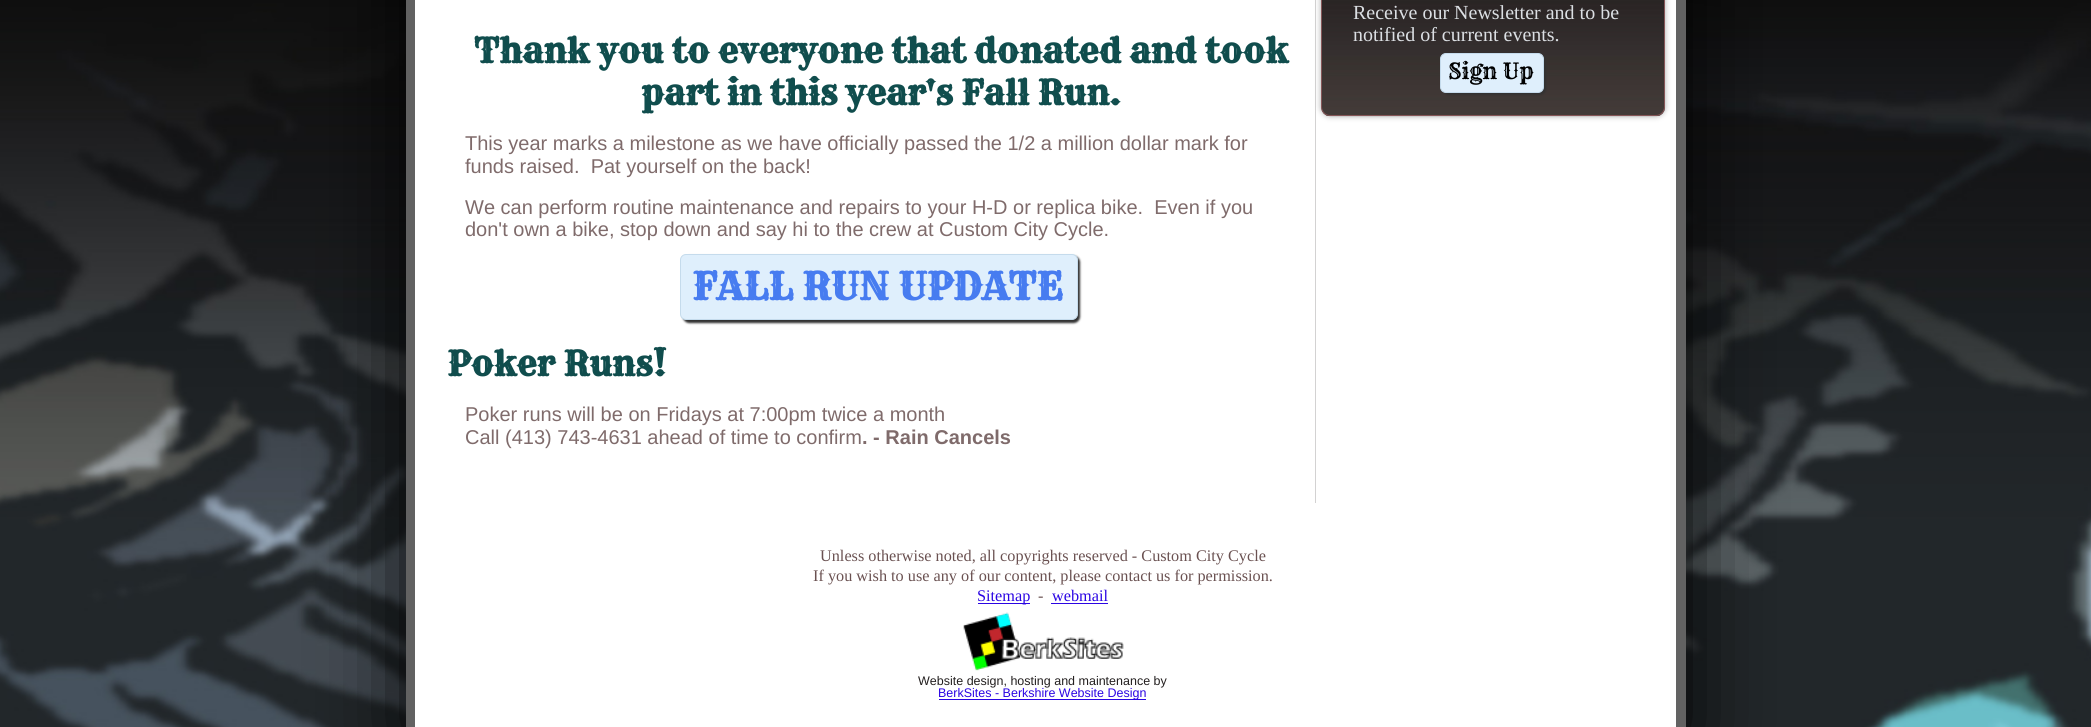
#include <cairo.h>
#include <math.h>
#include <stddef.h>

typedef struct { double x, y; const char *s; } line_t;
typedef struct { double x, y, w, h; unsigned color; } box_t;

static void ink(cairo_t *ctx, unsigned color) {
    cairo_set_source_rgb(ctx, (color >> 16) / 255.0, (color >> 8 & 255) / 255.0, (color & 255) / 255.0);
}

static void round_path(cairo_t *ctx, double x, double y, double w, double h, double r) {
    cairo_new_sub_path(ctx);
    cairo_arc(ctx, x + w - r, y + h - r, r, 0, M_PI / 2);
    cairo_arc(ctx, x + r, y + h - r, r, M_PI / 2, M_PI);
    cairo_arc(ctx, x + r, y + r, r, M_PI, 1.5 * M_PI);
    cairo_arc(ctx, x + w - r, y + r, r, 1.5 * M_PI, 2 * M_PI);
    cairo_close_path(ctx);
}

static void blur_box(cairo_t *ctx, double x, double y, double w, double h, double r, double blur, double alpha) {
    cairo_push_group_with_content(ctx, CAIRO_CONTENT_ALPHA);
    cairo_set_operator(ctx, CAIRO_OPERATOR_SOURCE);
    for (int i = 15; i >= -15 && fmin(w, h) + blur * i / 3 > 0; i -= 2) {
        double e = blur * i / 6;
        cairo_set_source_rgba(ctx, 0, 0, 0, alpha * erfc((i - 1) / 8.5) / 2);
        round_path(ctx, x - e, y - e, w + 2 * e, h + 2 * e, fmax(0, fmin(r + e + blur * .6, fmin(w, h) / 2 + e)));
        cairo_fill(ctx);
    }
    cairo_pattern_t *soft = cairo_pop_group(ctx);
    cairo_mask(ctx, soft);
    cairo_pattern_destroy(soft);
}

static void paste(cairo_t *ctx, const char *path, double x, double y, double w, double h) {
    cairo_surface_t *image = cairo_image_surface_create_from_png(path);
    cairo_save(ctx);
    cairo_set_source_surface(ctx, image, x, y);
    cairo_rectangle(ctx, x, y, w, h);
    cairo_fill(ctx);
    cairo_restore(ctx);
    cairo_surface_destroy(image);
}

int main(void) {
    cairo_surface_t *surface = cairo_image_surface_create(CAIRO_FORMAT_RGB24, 2091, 727);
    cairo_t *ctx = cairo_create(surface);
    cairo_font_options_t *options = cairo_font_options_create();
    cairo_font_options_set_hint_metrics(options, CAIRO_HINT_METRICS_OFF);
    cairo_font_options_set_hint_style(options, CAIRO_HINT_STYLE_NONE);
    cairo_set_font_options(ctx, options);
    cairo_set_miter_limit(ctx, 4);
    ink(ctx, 0xFFFFFF);
    cairo_paint(ctx);
    paste(ctx, "media/1.png", 0, 0, 2091, 727);
    ink(ctx, 0x000000);
    blur_box(ctx, 406, -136, 1280, 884, 10, 42, 1);
    {
        static const box_t items[] = {
            {406, 0, 1280, 727, 0x626262},
            {415, 0, 1261, 727, 0xFFFFFF},
            {1315, 0, 1, 503, 0xD3D2D2},
        };
        for (size_t i = 0; i < sizeof items / sizeof *items; i++) {
            ink(ctx, items[i].color);
            cairo_rectangle(ctx, items[i].x, items[i].y, items[i].w, items[i].h);
            cairo_fill(ctx);
        }
    }
    cairo_select_font_face(ctx, "Rye", CAIRO_FONT_SLANT_NORMAL, CAIRO_FONT_WEIGHT_BOLD);
    cairo_set_font_size(ctx, 34);
    ink(ctx, 0x104D4D);
    cairo_move_to(ctx, 474, 63);
    cairo_show_text(ctx, "Thank you to everyone that donated and took");
    cairo_move_to(ctx, 641, 105);
    cairo_show_text(ctx, "part in this year's Fall Run.");
    cairo_select_font_face(ctx, "Liberation Sans", CAIRO_FONT_SLANT_NORMAL, CAIRO_FONT_WEIGHT_NORMAL);
    cairo_set_font_size(ctx, 20);
    ink(ctx, 0x7F6B6B);
    {
        static const line_t items[] = {
            {465, 150, "This year marks a milestone as we have officially passed the 1/2 a million dollar mark for"},
            {465, 173, "funds raised.  Pat yourself on the back!"},
            {465, 214, "We can perform routine maintenance and repairs to your H-D or replica bike.  Even if you"},
            {465, 236, "don't own a bike, stop down and say hi to the crew at Custom City Cycle."},
        };
        for (size_t i = 0; i < sizeof items / sizeof *items; i++) {
            cairo_move_to(ctx, items[i].x, items[i].y);
            cairo_show_text(ctx, items[i].s);
        }
    }
    ink(ctx, 0x323232);
    blur_box(ctx, 683, 256, 397, 67, 6, 1, 1);
    ink(ctx, 0xDFEFFC);
    round_path(ctx, 680.5, 254.5, 397, 65, 5.5);
    cairo_fill_preserve(ctx);
    ink(ctx, 0xC5DBEC);
    cairo_set_line_width(ctx, 1);
    cairo_stroke(ctx);
    cairo_select_font_face(ctx, "Rye", CAIRO_FONT_SLANT_NORMAL, CAIRO_FONT_WEIGHT_BOLD);
    cairo_set_font_size(ctx, 37.5);
    ink(ctx, 0x477CF0);
    cairo_move_to(ctx, 692, 300);
    cairo_show_text(ctx, "FALL RUN UPDATE");
    cairo_set_font_size(ctx, 34);
    ink(ctx, 0x104D4D);
    cairo_move_to(ctx, 447, 376);
    cairo_show_text(ctx, "Poker Runs!");
    cairo_select_font_face(ctx, "Liberation Sans", CAIRO_FONT_SLANT_NORMAL, CAIRO_FONT_WEIGHT_NORMAL);
    cairo_set_font_size(ctx, 20);
    ink(ctx, 0x7F6B6B);
    cairo_move_to(ctx, 465, 421);
    cairo_show_text(ctx, "Poker runs will be on Fridays at 7:00pm twice a month");
    cairo_move_to(ctx, 465, 444);
    cairo_show_text(ctx, "Call (413) 743-4631 ahead of time to confirm");
    cairo_select_font_face(ctx, "Liberation Sans", CAIRO_FONT_SLANT_NORMAL, CAIRO_FONT_WEIGHT_BOLD);
    cairo_move_to(ctx, 862, 444);
    cairo_show_text(ctx, ". - Rain Cancels");
    ink(ctx, 0xA7A7A7);
    blur_box(ctx, 1321, -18, 344, 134, 9, 3, 1);
    paste(ctx, "media/2.png", 1321, 0, 344, 117);
    round_path(ctx, 1321.5, -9.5, 343, 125, 8.5);
    ink(ctx, 0x855557);
    cairo_stroke(ctx);
    cairo_select_font_face(ctx, "Liberation Serif", CAIRO_FONT_SLANT_NORMAL, CAIRO_FONT_WEIGHT_NORMAL);
    ink(ctx, 0xDBDFE3);
    cairo_move_to(ctx, 1353, 19);
    cairo_show_text(ctx, "Receive our Newsletter and to be");
    cairo_move_to(ctx, 1353, 41);
    cairo_show_text(ctx, "notified of current events.");
    ink(ctx, 0x323232);
    blur_box(ctx, 1443, 55, 103, 40, 6, 1, 1);
    ink(ctx, 0xDFEFFC);
    round_path(ctx, 1440.5, 53.5, 103, 39, 5.5);
    cairo_fill_preserve(ctx);
    ink(ctx, 0xC5DBEC);
    cairo_stroke(ctx);
    cairo_select_font_face(ctx, "Rye", CAIRO_FONT_SLANT_NORMAL, CAIRO_FONT_WEIGHT_NORMAL);
    cairo_set_font_size(ctx, 22);
    ink(ctx, 0x000000);
    cairo_move_to(ctx, 1448, 79);
    cairo_show_text(ctx, "Sign Up");
    cairo_select_font_face(ctx, "Liberation Serif", CAIRO_FONT_SLANT_NORMAL, CAIRO_FONT_WEIGHT_NORMAL);
    cairo_set_font_size(ctx, 16.25);
    ink(ctx, 0x6A5151);
    cairo_move_to(ctx, 820, 561);
    cairo_show_text(ctx, "Unless otherwise noted, all copyrights reserved - Custom City Cycle");
    cairo_move_to(ctx, 813, 581);
    cairo_show_text(ctx, "If you wish to use any of our content, please contact us for permission.");
    ink(ctx, 0x2B05E3);
    cairo_rectangle(ctx, 978, 603, 52, 1);
    cairo_fill(ctx);
    cairo_move_to(ctx, 977, 601);
    cairo_show_text(ctx, "Sitemap");
    ink(ctx, 0x6A5151);
    cairo_move_to(ctx, 1038, 601);
    cairo_show_text(ctx, "-");
    ink(ctx, 0x2B05E3);
    cairo_move_to(ctx, 1052, 601);
    cairo_show_text(ctx, "webmail");
    cairo_rectangle(ctx, 1051, 603, 57, 1);
    cairo_fill(ctx);
    paste(ctx, "media/3.png", 963, 612, 161, 59);
    cairo_select_font_face(ctx, "Liberation Sans", CAIRO_FONT_SLANT_NORMAL, CAIRO_FONT_WEIGHT_NORMAL);
    cairo_set_font_size(ctx, 12.5);
    ink(ctx, 0x231F1F);
    cairo_move_to(ctx, 918, 685);
    cairo_show_text(ctx, "Website design, hosting and maintenance by");
    ink(ctx, 0x2B05E3);
    cairo_rectangle(ctx, 939, 699, 207, 1);
    cairo_fill(ctx);
    cairo_move_to(ctx, 938, 697);
    cairo_show_text(ctx, "BerkSites - Berkshire Website Design");
    cairo_surface_write_to_png(surface, "image.png");
    cairo_font_options_destroy(options);
    cairo_destroy(ctx);
    cairo_surface_destroy(surface);
    return 0;
}
